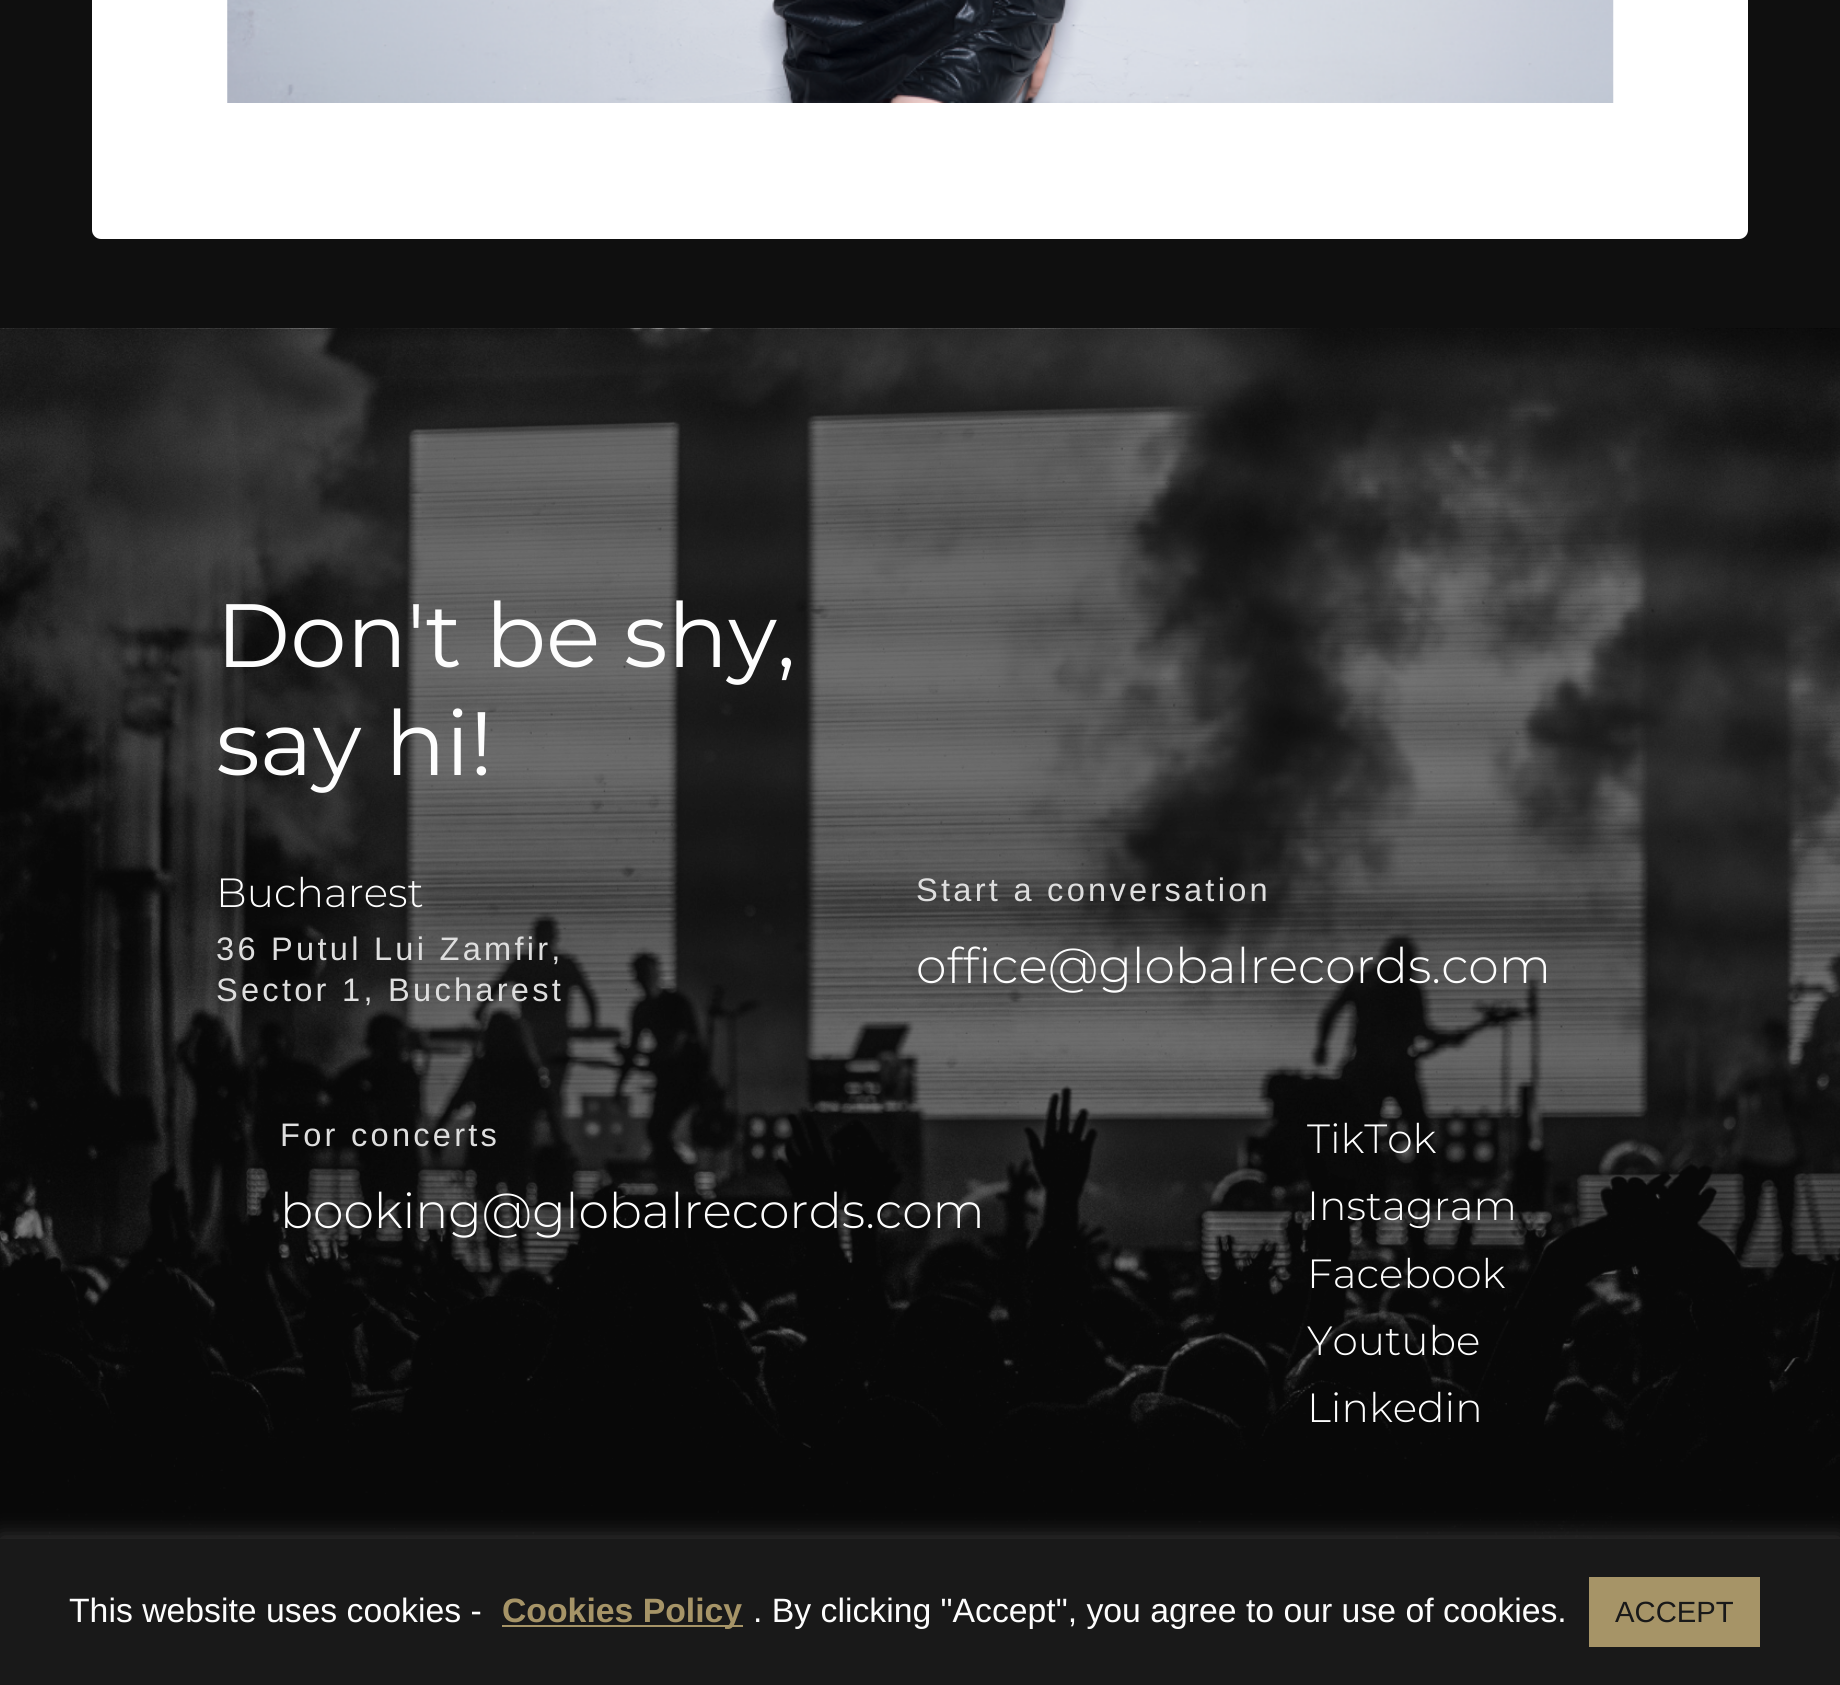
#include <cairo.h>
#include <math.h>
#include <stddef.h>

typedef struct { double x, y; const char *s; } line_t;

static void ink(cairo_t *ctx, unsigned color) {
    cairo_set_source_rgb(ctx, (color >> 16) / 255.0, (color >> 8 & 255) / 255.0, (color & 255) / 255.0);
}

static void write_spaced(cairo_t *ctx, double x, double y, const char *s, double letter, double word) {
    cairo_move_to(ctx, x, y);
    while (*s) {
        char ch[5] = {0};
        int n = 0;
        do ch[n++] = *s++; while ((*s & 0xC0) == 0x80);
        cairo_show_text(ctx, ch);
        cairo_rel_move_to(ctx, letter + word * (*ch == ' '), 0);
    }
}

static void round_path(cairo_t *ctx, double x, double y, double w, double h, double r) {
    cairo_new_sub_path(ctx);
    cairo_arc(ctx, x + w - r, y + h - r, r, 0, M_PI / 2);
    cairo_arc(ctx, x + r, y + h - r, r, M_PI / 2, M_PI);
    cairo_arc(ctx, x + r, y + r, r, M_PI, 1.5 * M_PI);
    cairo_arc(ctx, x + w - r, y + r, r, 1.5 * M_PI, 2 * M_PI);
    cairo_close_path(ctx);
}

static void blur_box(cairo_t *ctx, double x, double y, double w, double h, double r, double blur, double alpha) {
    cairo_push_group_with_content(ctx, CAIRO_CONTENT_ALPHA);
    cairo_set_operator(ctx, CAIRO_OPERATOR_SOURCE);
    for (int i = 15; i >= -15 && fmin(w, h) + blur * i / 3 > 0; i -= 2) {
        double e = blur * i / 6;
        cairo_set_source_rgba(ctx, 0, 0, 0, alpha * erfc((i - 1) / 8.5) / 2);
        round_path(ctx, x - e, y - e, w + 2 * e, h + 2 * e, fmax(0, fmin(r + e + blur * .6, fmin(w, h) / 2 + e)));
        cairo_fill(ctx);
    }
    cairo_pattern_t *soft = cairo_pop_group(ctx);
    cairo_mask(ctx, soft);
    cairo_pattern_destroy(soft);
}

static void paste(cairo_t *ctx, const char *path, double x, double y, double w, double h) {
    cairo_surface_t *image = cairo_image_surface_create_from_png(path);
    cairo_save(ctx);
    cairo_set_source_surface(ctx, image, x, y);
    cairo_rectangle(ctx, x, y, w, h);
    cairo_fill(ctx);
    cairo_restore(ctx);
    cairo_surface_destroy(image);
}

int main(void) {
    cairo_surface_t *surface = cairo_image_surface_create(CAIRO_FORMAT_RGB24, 1840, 1685);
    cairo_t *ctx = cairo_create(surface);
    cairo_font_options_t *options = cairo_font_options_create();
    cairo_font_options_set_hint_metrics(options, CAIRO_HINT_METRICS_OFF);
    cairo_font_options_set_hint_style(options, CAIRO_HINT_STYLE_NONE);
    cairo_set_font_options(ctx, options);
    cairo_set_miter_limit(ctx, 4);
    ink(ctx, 0x0F0F0F);
    cairo_paint(ctx);
    ink(ctx, 0xFFFFFF);
    round_path(ctx, 92, -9, 1656, 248, 9);
    cairo_fill(ctx);
    paste(ctx, "media/1.png", 227, 0, 1387, 103);
    paste(ctx, "media/2.png", 0, 328, 1840, 1211);
    cairo_select_font_face(ctx, "Montserrat", CAIRO_FONT_SLANT_NORMAL, CAIRO_FONT_WEIGHT_NORMAL);
    cairo_set_font_size(ctx, 89.75);
    ink(ctx, 0xFDFDFD);
    cairo_move_to(ctx, 216, 667);
    cairo_show_text(ctx, "Don't be shy,");
    cairo_move_to(ctx, 216, 775);
    cairo_show_text(ctx, "say hi!");
    cairo_select_font_face(ctx, "Montserrat Light", CAIRO_FONT_SLANT_NORMAL, CAIRO_FONT_WEIGHT_NORMAL);
    cairo_set_font_size(ctx, 40.75);
    cairo_move_to(ctx, 216, 907);
    cairo_show_text(ctx, "Bucharest");
    cairo_select_font_face(ctx, "Liberation Sans", CAIRO_FONT_SLANT_NORMAL, CAIRO_FONT_WEIGHT_NORMAL);
    cairo_set_font_size(ctx, 32.6);
    ink(ctx, 0xDEDEDE);
    {
        static const line_t items[] = {
            {216, 960, "36 Putul Lui Zamfir,"},
            {216, 1001, "Sector 1, Bucharest"},
            {916, 901, "Start a conversation"},
        };
        for (size_t i = 0; i < sizeof items / sizeof *items; i++) {
            write_spaced(ctx, items[i].x, items[i].y, items[i].s, 3.25, 0);
        }
    }
    cairo_select_font_face(ctx, "Montserrat Light", CAIRO_FONT_SLANT_NORMAL, CAIRO_FONT_WEIGHT_NORMAL);
    cairo_set_font_size(ctx, 49);
    ink(ctx, 0xFDFDFD);
    cairo_move_to(ctx, 916, 983);
    cairo_show_text(ctx, "office@globalrecords.com");
    cairo_select_font_face(ctx, "Liberation Sans", CAIRO_FONT_SLANT_NORMAL, CAIRO_FONT_WEIGHT_NORMAL);
    cairo_set_font_size(ctx, 32.6);
    ink(ctx, 0xDEDEDE);
    write_spaced(ctx, 280, 1146, "For concerts", 3.25, 0);
    cairo_select_font_face(ctx, "Montserrat Light", CAIRO_FONT_SLANT_NORMAL, CAIRO_FONT_WEIGHT_NORMAL);
    cairo_set_font_size(ctx, 49);
    ink(ctx, 0xFDFDFD);
    cairo_move_to(ctx, 280, 1228);
    cairo_show_text(ctx, "booking@globalrecords.com");
    cairo_set_font_size(ctx, 40.75);
    {
        static const line_t items[] = {
            {1307, 1153, "TikTok"},
            {1307, 1220, "Instagram"},
            {1307, 1288, "Facebook"},
            {1307, 1355, "Youtube"},
            {1307, 1422, "Linkedin"},
        };
        for (size_t i = 0; i < sizeof items / sizeof *items; i++) {
            cairo_move_to(ctx, items[i].x, items[i].y);
            cairo_show_text(ctx, items[i].s);
        }
    }
    ink(ctx, 0xACABAB);
    blur_box(ctx, 0, 1537, 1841, 146, 0, 11, 0.3);
    ink(ctx, 0x191919);
    cairo_rectangle(ctx, 0, 1539, 1840, 146);
    cairo_fill(ctx);
    cairo_select_font_face(ctx, "Liberation Sans", CAIRO_FONT_SLANT_NORMAL, CAIRO_FONT_WEIGHT_NORMAL);
    cairo_set_font_size(ctx, 33.75);
    ink(ctx, 0xFDFDFD);
    cairo_move_to(ctx, 69, 1622);
    cairo_show_text(ctx, "This website uses cookies -");
    ink(ctx, 0xA69467);
    cairo_rectangle(ctx, 502, 1625, 241, 2);
    cairo_fill(ctx);
    cairo_select_font_face(ctx, "Liberation Sans", CAIRO_FONT_SLANT_NORMAL, CAIRO_FONT_WEIGHT_BOLD);
    cairo_move_to(ctx, 502, 1622);
    cairo_show_text(ctx, "Cookies Policy");
    cairo_select_font_face(ctx, "Liberation Sans", CAIRO_FONT_SLANT_NORMAL, CAIRO_FONT_WEIGHT_NORMAL);
    ink(ctx, 0xFDFDFD);
    cairo_move_to(ctx, 753, 1622);
    cairo_show_text(ctx, ". By clicking \"Accept\", you agree to our use of cookies.");
    ink(ctx, 0xA69467);
    cairo_rectangle(ctx, 1589, 1577, 171, 70);
    cairo_fill(ctx);
    cairo_set_font_size(ctx, 29.25);
    ink(ctx, 0x191919);
    cairo_move_to(ctx, 1615, 1622);
    cairo_show_text(ctx, "ACCEPT");
    cairo_surface_write_to_png(surface, "image.png");
    cairo_font_options_destroy(options);
    cairo_destroy(ctx);
    cairo_surface_destroy(surface);
    return 0;
}
